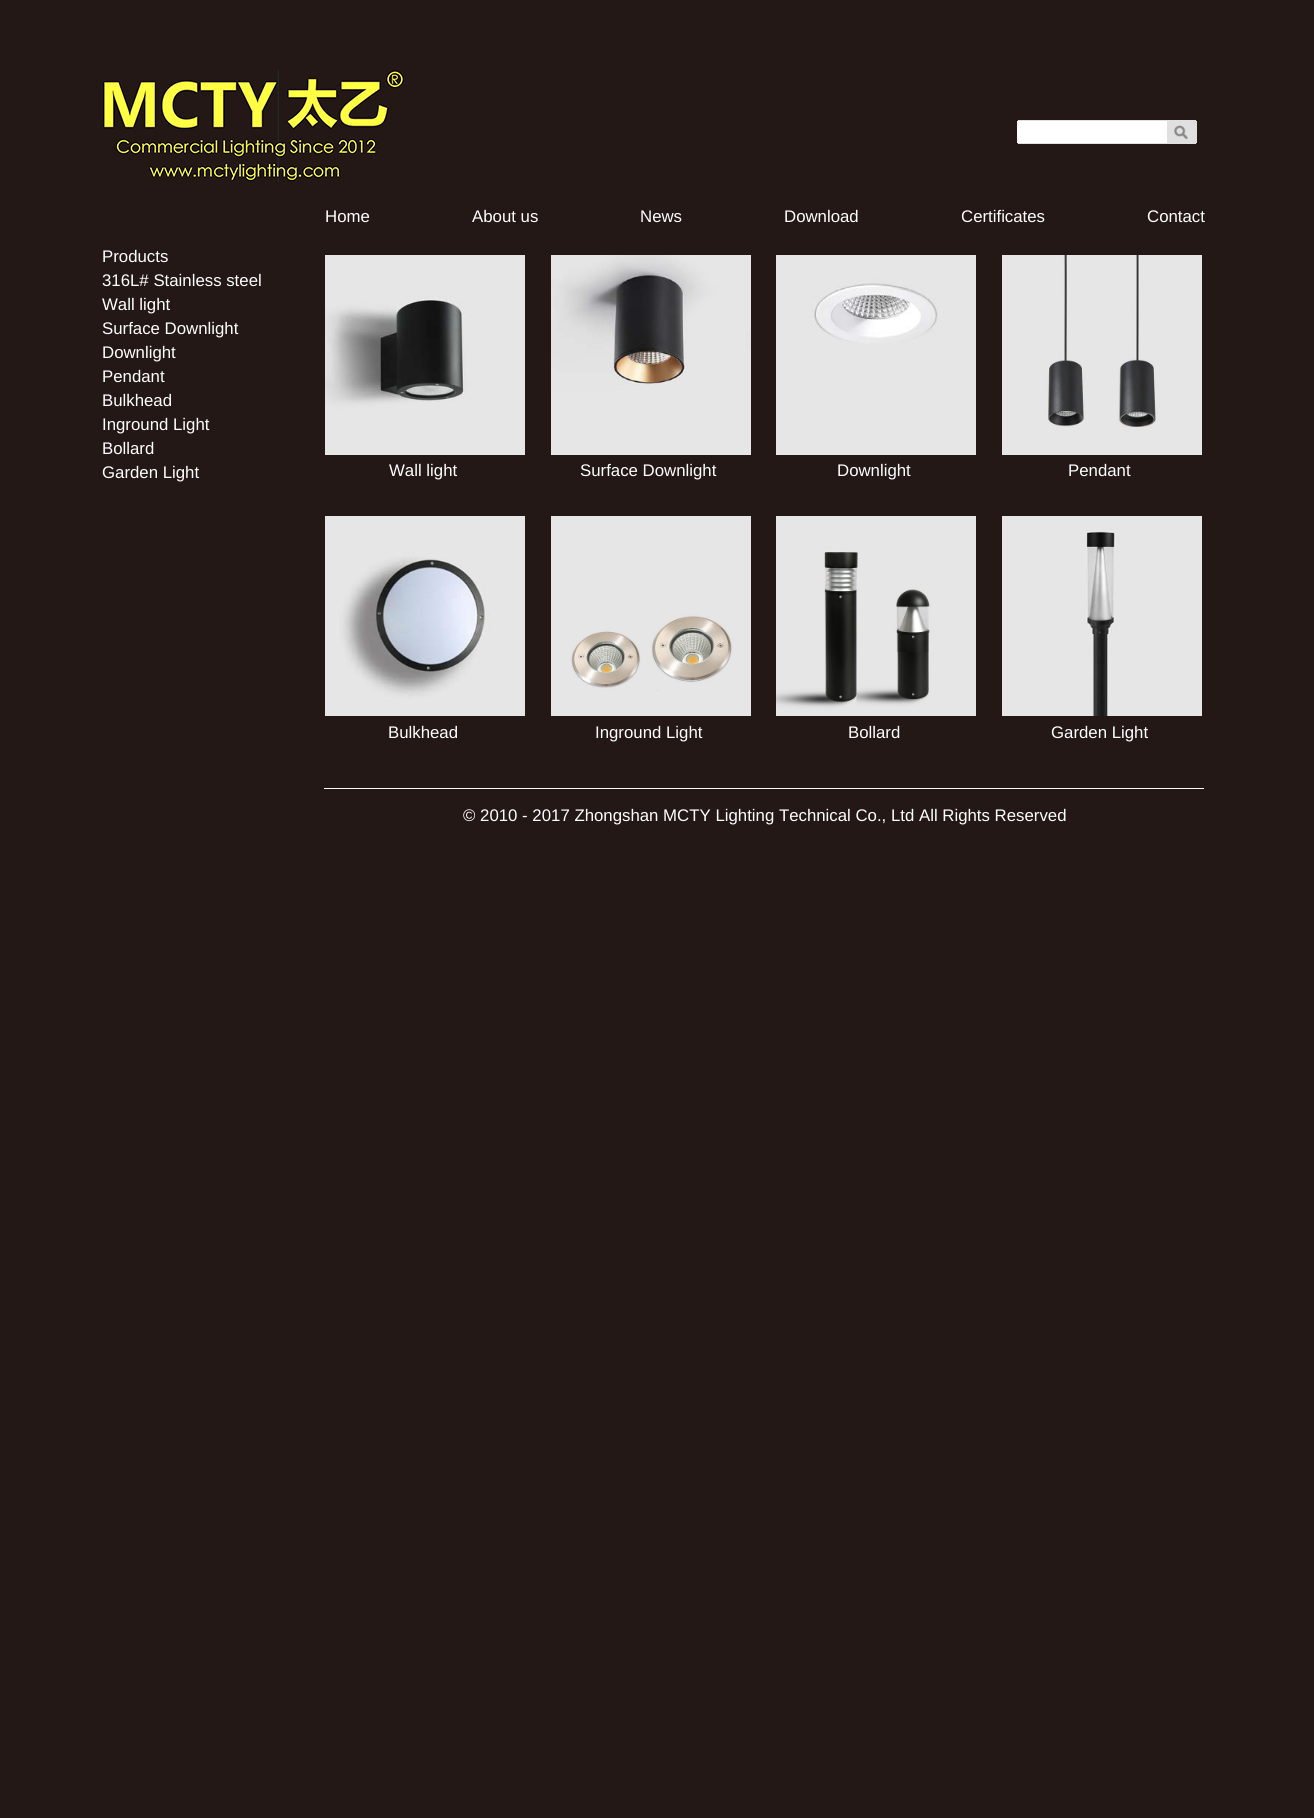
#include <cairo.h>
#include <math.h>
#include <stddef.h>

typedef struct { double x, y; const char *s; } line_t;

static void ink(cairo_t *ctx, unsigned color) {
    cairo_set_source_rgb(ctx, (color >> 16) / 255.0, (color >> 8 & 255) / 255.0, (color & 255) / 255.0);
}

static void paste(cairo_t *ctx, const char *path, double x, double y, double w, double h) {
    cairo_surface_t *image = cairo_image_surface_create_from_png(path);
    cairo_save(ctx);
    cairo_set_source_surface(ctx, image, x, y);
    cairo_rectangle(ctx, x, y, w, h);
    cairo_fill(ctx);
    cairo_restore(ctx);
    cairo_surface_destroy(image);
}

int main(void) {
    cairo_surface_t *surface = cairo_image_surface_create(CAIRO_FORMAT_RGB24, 1314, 1818);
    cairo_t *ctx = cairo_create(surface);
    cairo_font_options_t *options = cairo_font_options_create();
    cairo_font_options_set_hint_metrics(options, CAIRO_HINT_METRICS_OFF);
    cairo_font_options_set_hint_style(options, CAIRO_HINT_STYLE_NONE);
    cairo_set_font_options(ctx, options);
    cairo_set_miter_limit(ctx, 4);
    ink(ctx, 0x231816);
    cairo_paint(ctx);
    paste(ctx, "media/1.png", 102, 70, 302, 112);
    paste(ctx, "media/2.png", 1018, 120, 179, 24);
    ink(ctx, 0xFFFFFF);
    cairo_rectangle(ctx, 1017, 121, 3, 22);
    cairo_fill(ctx);
    cairo_select_font_face(ctx, "Liberation Sans", CAIRO_FONT_SLANT_NORMAL, CAIRO_FONT_WEIGHT_NORMAL);
    cairo_set_font_size(ctx, 16.8);
    {
        static const line_t items[] = {
            {102, 262, "Products"},
            {102, 286, "316L# Stainless steel"},
            {102, 310, "Wall light"},
            {102, 334, "Surface Downlight"},
            {102, 358, "Downlight"},
            {102, 382, "Pendant"},
            {102, 406, "Bulkhead"},
            {102, 430, "Inground Light"},
            {102, 454, "Bollard"},
            {102, 478, "Garden Light"},
            {325, 222, "Home"},
            {472, 222, "About us"},
            {640, 222, "News"},
            {784, 222, "Download"},
            {961, 222, "Certificates"},
            {1147, 222, "Contact"},
        };
        for (size_t i = 0; i < sizeof items / sizeof *items; i++) {
            cairo_move_to(ctx, items[i].x, items[i].y);
            cairo_show_text(ctx, items[i].s);
        }
    }
    paste(ctx, "media/3.png", 325, 255, 200, 200);
    cairo_move_to(ctx, 389, 476);
    cairo_show_text(ctx, "Wall light");
    paste(ctx, "media/4.png", 551, 255, 200, 200);
    cairo_move_to(ctx, 580, 476);
    cairo_show_text(ctx, "Surface Downlight");
    paste(ctx, "media/5.png", 776, 255, 200, 200);
    cairo_move_to(ctx, 837, 476);
    cairo_show_text(ctx, "Downlight");
    paste(ctx, "media/6.png", 1002, 255, 200, 200);
    cairo_move_to(ctx, 1068, 476);
    cairo_show_text(ctx, "Pendant");
    paste(ctx, "media/7.png", 325, 516, 200, 200);
    cairo_move_to(ctx, 388, 738);
    cairo_show_text(ctx, "Bulkhead");
    paste(ctx, "media/8.png", 551, 516, 200, 200);
    cairo_move_to(ctx, 595, 738);
    cairo_show_text(ctx, "Inground Light");
    paste(ctx, "media/9.png", 776, 516, 200, 200);
    cairo_move_to(ctx, 848, 738);
    cairo_show_text(ctx, "Bollard");
    paste(ctx, "media/10.png", 1002, 516, 200, 200);
    cairo_move_to(ctx, 1051, 738);
    cairo_show_text(ctx, "Garden Light");
    cairo_rectangle(ctx, 324, 788, 880, 1);
    cairo_fill(ctx);
    cairo_move_to(ctx, 463, 821);
    cairo_show_text(ctx, "© 2010 - 2017 Zhongshan MCTY Lighting Technical Co., Ltd All Rights Reserved");
    cairo_surface_write_to_png(surface, "image.png");
    cairo_font_options_destroy(options);
    cairo_destroy(ctx);
    cairo_surface_destroy(surface);
    return 0;
}
